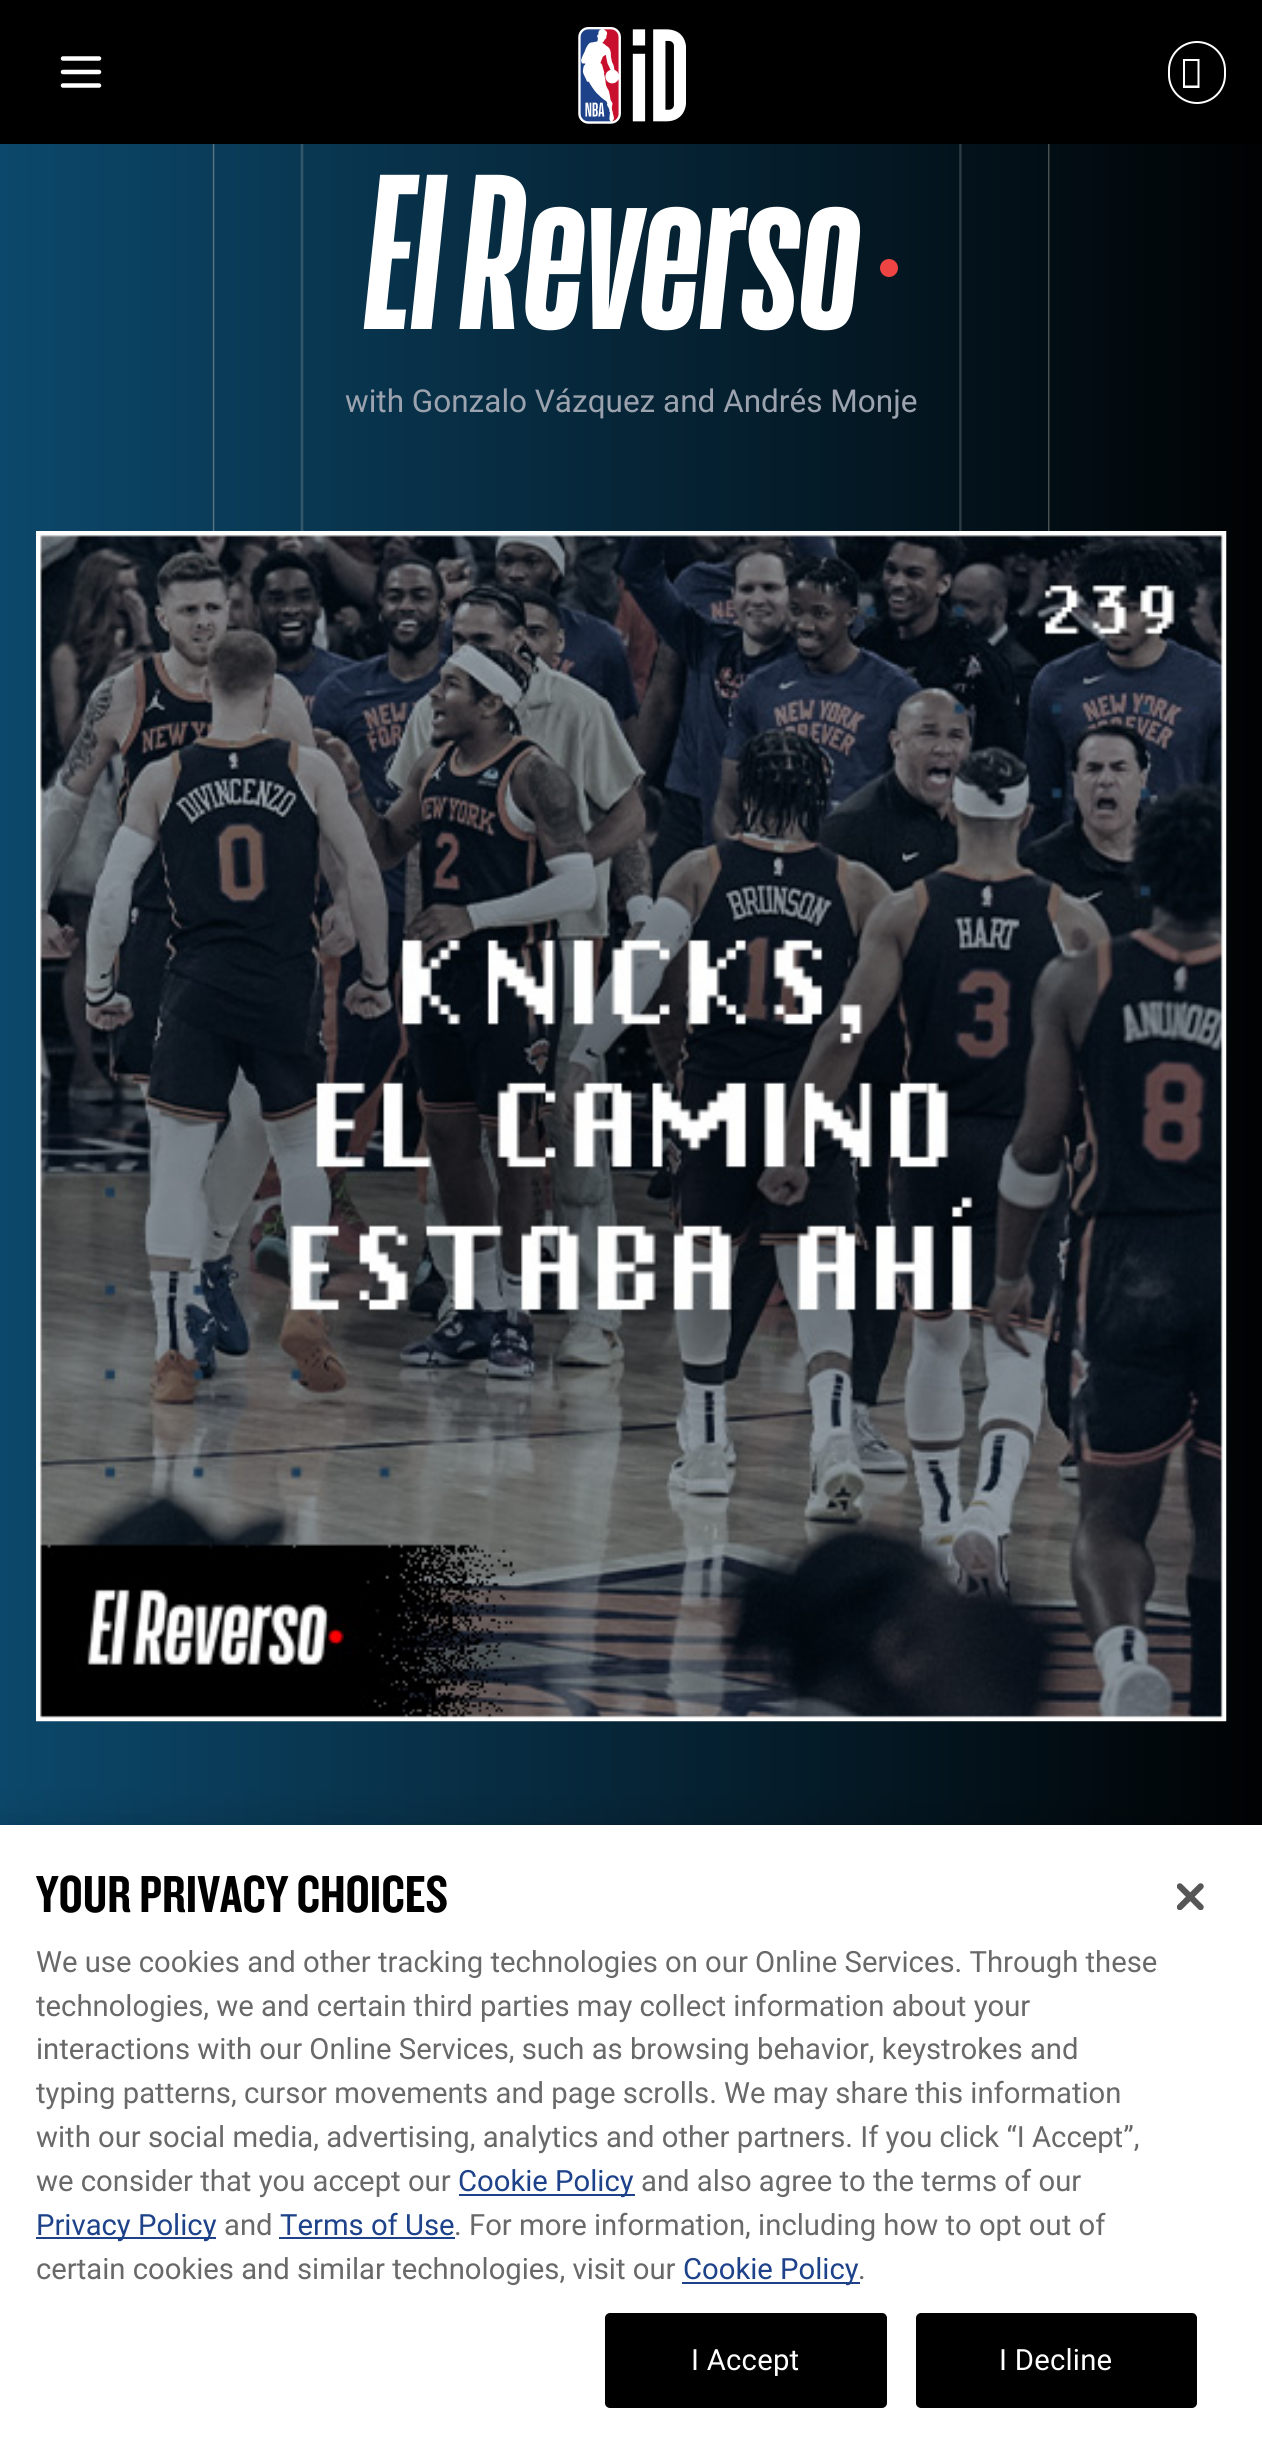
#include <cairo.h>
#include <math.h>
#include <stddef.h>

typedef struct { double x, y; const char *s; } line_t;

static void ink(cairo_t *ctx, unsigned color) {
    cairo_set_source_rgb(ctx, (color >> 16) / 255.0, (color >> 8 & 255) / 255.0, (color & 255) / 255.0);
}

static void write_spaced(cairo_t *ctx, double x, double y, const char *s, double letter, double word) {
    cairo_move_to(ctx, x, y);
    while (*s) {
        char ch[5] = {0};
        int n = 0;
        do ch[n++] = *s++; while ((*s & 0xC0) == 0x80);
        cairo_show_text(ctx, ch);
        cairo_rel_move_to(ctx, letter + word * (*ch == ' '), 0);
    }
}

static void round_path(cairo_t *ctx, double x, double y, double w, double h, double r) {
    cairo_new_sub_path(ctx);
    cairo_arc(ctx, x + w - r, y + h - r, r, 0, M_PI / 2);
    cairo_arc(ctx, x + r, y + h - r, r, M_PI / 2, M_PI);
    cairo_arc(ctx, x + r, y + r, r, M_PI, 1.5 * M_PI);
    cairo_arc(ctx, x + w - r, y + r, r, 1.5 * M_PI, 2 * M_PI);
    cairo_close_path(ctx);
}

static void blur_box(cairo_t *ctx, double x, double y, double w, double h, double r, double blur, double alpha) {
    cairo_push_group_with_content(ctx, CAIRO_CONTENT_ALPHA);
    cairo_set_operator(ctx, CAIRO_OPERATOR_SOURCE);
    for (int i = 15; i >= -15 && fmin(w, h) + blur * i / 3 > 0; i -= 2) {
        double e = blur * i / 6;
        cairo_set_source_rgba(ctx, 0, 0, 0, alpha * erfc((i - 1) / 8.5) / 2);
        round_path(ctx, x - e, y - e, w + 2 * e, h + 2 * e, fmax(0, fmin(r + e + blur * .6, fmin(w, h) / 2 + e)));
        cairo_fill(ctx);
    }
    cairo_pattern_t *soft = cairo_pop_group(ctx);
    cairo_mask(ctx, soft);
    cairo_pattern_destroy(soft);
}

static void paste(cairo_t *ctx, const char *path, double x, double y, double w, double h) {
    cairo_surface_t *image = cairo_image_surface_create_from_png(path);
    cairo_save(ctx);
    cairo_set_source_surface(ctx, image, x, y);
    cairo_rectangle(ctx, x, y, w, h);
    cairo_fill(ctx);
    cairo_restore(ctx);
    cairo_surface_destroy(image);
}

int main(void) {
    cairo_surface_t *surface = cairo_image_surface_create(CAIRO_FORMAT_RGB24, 1262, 2451);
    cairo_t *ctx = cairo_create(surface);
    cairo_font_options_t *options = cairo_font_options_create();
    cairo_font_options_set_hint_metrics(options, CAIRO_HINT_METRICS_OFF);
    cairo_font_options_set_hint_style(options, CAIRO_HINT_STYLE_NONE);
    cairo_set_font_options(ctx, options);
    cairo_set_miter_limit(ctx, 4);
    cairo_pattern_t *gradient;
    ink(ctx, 0xFFFFFF);
    cairo_paint(ctx);
    ink(ctx, 0x000000);
    cairo_rectangle(ctx, 0, 0, 1262, 144);
    cairo_fill(ctx);
    paste(ctx, "media/1.png", 578, 27, 108, 97);
    cairo_new_path(ctx);
    cairo_move_to(ctx, 63, 58.5);
    cairo_line_to(ctx, 99, 58.5);
    cairo_move_to(ctx, 63, 72);
    cairo_line_to(ctx, 99, 72);
    cairo_move_to(ctx, 63, 85.5);
    cairo_line_to(ctx, 99, 85.5);
    ink(ctx, 0xFFFFFF);
    cairo_set_line_width(ctx, 4.5);
    cairo_set_line_cap(ctx, CAIRO_LINE_CAP_ROUND);
    cairo_set_line_join(ctx, CAIRO_LINE_JOIN_ROUND);
    cairo_stroke(ctx);
    round_path(ctx, 1169, 42, 56, 61, 28);
    cairo_set_line_width(ctx, 2);
    cairo_set_line_cap(ctx, CAIRO_LINE_CAP_BUTT);
    cairo_set_line_join(ctx, CAIRO_LINE_JOIN_MITER);
    cairo_stroke(ctx);
    cairo_new_path(ctx);
    cairo_move_to(ctx, 1183, 88);
    cairo_line_to(ctx, 1183, 59);
    cairo_line_to(ctx, 1199.5, 59);
    cairo_line_to(ctx, 1199.5, 88);
    cairo_close_path(ctx);
    cairo_move_to(ctx, 1185, 85.5);
    cairo_line_to(ctx, 1197.5, 85.5);
    cairo_line_to(ctx, 1197.5, 61);
    cairo_line_to(ctx, 1185, 61);
    cairo_close_path(ctx);
    cairo_fill(ctx);
    gradient = cairo_pattern_create_linear(-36, 1410, 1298, 1410);
    cairo_pattern_add_color_stop_rgba(gradient, 0, 0.047, 0.29, 0.431, 1);
    cairo_pattern_add_color_stop_rgba(gradient, 1, 0, 0, 0, 1);
    cairo_set_source(ctx, gradient);
    cairo_pattern_destroy(gradient);
    cairo_rectangle(ctx, 0, 144, 1262, 1681);
    cairo_fill(ctx);
    paste(ctx, "media/2.png", 212, 144, 1015, 1191);
    cairo_select_font_face(ctx, "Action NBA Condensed", CAIRO_FONT_SLANT_ITALIC, CAIRO_FONT_WEIGHT_BOLD);
    cairo_set_font_size(ctx, 216);
    ink(ctx, 0xFFFFFF);
    cairo_move_to(ctx, 365, 329);
    cairo_show_text(ctx, "El Reverso");
    ink(ctx, 0xEF4444);
    cairo_new_path(ctx);
    cairo_arc(ctx, 889, 268, 9, 0, 2 * M_PI);
    cairo_fill(ctx);
    cairo_select_font_face(ctx, "Roboto", CAIRO_FONT_SLANT_NORMAL, CAIRO_FONT_WEIGHT_NORMAL);
    cairo_set_font_size(ctx, 31.5);
    ink(ctx, 0x9CA3AF);
    cairo_move_to(ctx, 345, 412);
    cairo_show_text(ctx, "with Gonzalo Vázquez and Andrés Monje");
    paste(ctx, "media/3.png", 36, 531, 1191, 1191);
    ink(ctx, 0x000000);
    blur_box(ctx, 0, 1825, 1262, 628, 0, 20, 0.2);
    ink(ctx, 0xFFFFFF);
    cairo_rectangle(ctx, 0, 1825, 1262, 626);
    cairo_fill(ctx);
    cairo_select_font_face(ctx, "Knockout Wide", CAIRO_FONT_SLANT_NORMAL, CAIRO_FONT_WEIGHT_NORMAL);
    cairo_set_font_size(ctx, 54);
    ink(ctx, 0x000000);
    cairo_move_to(ctx, 36, 1912);
    cairo_show_text(ctx, "YOUR PRIVACY CHOICES");
    cairo_select_font_face(ctx, "Roboto", CAIRO_FONT_SLANT_NORMAL, CAIRO_FONT_WEIGHT_NORMAL);
    cairo_set_font_size(ctx, 29.25);
    ink(ctx, 0x696969);
    {
        static const line_t items[] = {
            {36, 1972, "We use cookies and other tracking technologies on our Online Services. Through these"},
            {36, 2016, "technologies, we and certain third parties may collect information about your"},
            {36, 2059, "interactions with our Online Services, such as browsing behavior, keystrokes and"},
            {36, 2103, "typing patterns, cursor movements and page scrolls."},
            {724, 2103, "We may share this information"},
            {36, 2147, "with our social media, advertising, analytics and other partners. If you click “I Accept”,"},
            {36, 2191, "we consider that you accept our"},
        };
        for (size_t i = 0; i < sizeof items / sizeof *items; i++) {
            cairo_move_to(ctx, items[i].x, items[i].y);
            cairo_show_text(ctx, items[i].s);
        }
    }
    ink(ctx, 0x1D428A);
    cairo_rectangle(ctx, 459, 2194, 176, 2);
    cairo_fill(ctx);
    cairo_move_to(ctx, 458, 2191);
    cairo_show_text(ctx, "Cookie Policy");
    ink(ctx, 0x696969);
    cairo_move_to(ctx, 641, 2191);
    cairo_show_text(ctx, "and also agree to the terms of our");
    ink(ctx, 0x1D428A);
    cairo_rectangle(ctx, 36, 2237, 180, 2);
    cairo_fill(ctx);
    cairo_move_to(ctx, 36, 2235);
    cairo_show_text(ctx, "Privacy Policy");
    ink(ctx, 0x696969);
    cairo_move_to(ctx, 224, 2235);
    cairo_show_text(ctx, "and");
    ink(ctx, 0x1D428A);
    cairo_move_to(ctx, 280, 2235);
    cairo_show_text(ctx, "Terms of Use");
    cairo_rectangle(ctx, 279, 2237, 176, 2);
    cairo_fill(ctx);
    ink(ctx, 0x696969);
    cairo_move_to(ctx, 454, 2235);
    cairo_show_text(ctx, ". For more information, including how to opt out of");
    cairo_move_to(ctx, 36, 2279);
    cairo_show_text(ctx, "certain cookies and similar technologies, visit our");
    ink(ctx, 0x1D428A);
    cairo_rectangle(ctx, 682, 2282, 178, 2);
    cairo_fill(ctx);
    cairo_move_to(ctx, 683, 2279);
    cairo_show_text(ctx, "Cookie Policy");
    ink(ctx, 0x696969);
    cairo_move_to(ctx, 858, 2279);
    cairo_show_text(ctx, ".");
    ink(ctx, 0x000000);
    round_path(ctx, 606, 2314, 280, 93, 4);
    cairo_fill_preserve(ctx);
    cairo_stroke(ctx);
    ink(ctx, 0xFFFFFF);
    write_spaced(ctx, 691, 2370, "I Accept", 0.25, 0);
    ink(ctx, 0x000000);
    round_path(ctx, 917, 2314, 279, 93, 4);
    cairo_fill_preserve(ctx);
    cairo_stroke(ctx);
    ink(ctx, 0xFFFFFF);
    write_spaced(ctx, 999, 2370, "I Decline", 0.25, 0);
    paste(ctx, "media/4.png", 1177, 1883, 27, 27);
    cairo_surface_write_to_png(surface, "image.png");
    cairo_font_options_destroy(options);
    cairo_destroy(ctx);
    cairo_surface_destroy(surface);
    return 0;
}
